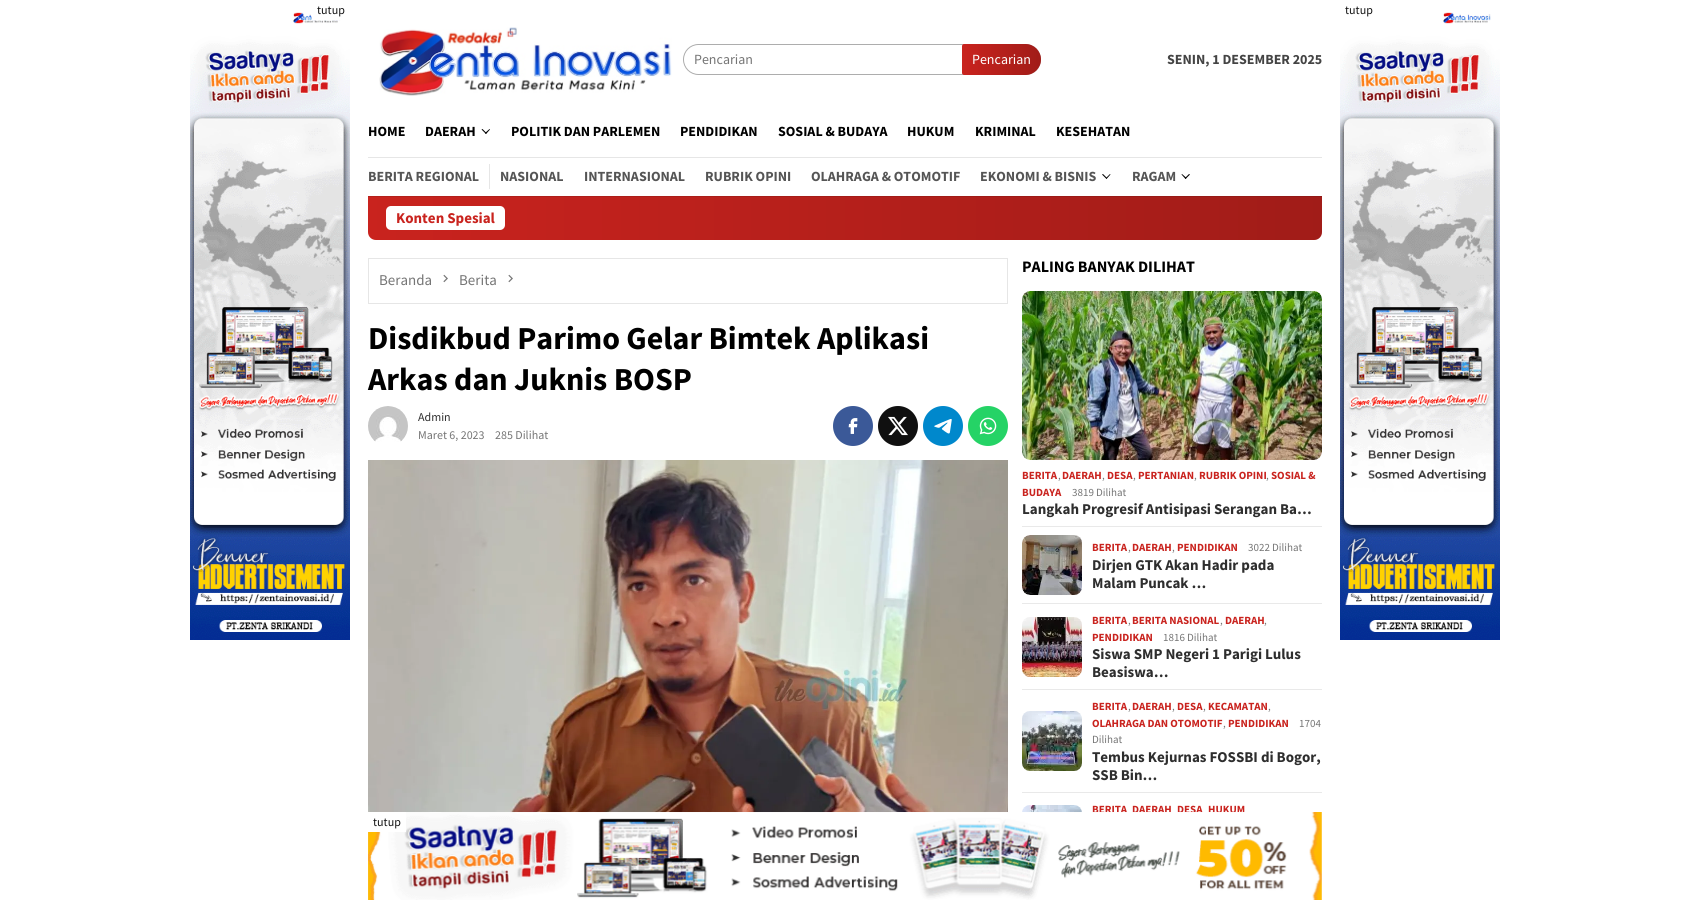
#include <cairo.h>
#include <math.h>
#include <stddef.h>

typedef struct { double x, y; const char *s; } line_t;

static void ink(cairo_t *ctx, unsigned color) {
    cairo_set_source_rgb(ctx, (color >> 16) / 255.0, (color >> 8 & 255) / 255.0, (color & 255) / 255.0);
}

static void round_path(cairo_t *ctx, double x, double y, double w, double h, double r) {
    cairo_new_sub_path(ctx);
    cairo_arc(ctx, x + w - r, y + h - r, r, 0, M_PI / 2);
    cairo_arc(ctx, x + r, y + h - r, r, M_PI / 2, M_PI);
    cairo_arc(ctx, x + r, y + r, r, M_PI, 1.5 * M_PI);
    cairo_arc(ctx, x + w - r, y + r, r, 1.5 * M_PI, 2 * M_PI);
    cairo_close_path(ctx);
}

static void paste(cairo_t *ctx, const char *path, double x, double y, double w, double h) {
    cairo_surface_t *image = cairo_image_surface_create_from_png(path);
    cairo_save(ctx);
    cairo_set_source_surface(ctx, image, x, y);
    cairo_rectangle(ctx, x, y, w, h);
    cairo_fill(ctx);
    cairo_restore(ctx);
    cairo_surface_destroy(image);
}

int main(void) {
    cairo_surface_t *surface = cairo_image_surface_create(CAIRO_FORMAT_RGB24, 1690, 900);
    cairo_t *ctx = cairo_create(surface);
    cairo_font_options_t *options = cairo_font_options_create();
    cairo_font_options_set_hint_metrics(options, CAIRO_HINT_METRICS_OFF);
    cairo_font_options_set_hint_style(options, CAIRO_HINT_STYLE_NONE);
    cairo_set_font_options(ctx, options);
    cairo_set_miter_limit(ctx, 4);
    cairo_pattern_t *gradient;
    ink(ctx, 0xFFFFFF);
    cairo_paint(ctx);
    paste(ctx, "media/1.png", 190, 12, 160, 628);
    ink(ctx, 0xFFFFFF);
    cairo_rectangle(ctx, 312, 14, 29, 6);
    cairo_fill(ctx);
    cairo_select_font_face(ctx, "Source Sans Pro", CAIRO_FONT_SLANT_NORMAL, CAIRO_FONT_WEIGHT_NORMAL);
    cairo_set_font_size(ctx, 12);
    ink(ctx, 0x111111);
    cairo_move_to(ctx, 317, 14);
    cairo_show_text(ctx, "tutup");
    paste(ctx, "media/1.png", 1340, 12, 160, 628);
    cairo_move_to(ctx, 1345, 14);
    cairo_show_text(ctx, "tutup");
    paste(ctx, "media/2.png", 379, 27, 293, 69);
    round_path(ctx, 683.5, 44.5, 357, 30, 15);
    ink(ctx, 0xADADAD);
    cairo_set_line_width(ctx, 1);
    cairo_stroke(ctx);
    cairo_set_font_size(ctx, 14);
    ink(ctx, 0x757575);
    cairo_move_to(ctx, 694, 64);
    cairo_show_text(ctx, "Pencarian");
    ink(ctx, 0xC9231E);
    cairo_new_path(ctx);
    cairo_move_to(ctx, 964, 44);
    cairo_line_to(ctx, 1025.5, 44);
    cairo_curve_to(ctx, 1034, 44, 1041, 51, 1041, 59.5);
    cairo_curve_to(ctx, 1041, 68, 1034, 75, 1025.5, 75);
    cairo_line_to(ctx, 964, 75);
    cairo_curve_to(ctx, 963, 75, 962, 74, 962, 73);
    cairo_line_to(ctx, 962, 46);
    cairo_curve_to(ctx, 962, 45, 963, 44, 964, 44);
    cairo_close_path(ctx);
    cairo_fill(ctx);
    gradient = cairo_pattern_create_linear(962, 60, 1041, 60);
    cairo_pattern_add_color_stop_rgba(gradient, 0, 0, 0, 0, 0);
    cairo_pattern_add_color_stop_rgba(gradient, 1, 0, 0, 0, 0.2);
    cairo_set_source(ctx, gradient);
    cairo_pattern_destroy(gradient);
    cairo_new_path(ctx);
    cairo_move_to(ctx, 964, 44);
    cairo_line_to(ctx, 1025.5, 44);
    cairo_curve_to(ctx, 1034, 44, 1041, 51, 1041, 59.5);
    cairo_curve_to(ctx, 1041, 68, 1034, 75, 1025.5, 75);
    cairo_line_to(ctx, 964, 75);
    cairo_curve_to(ctx, 963, 75, 962, 74, 962, 73);
    cairo_line_to(ctx, 962, 46);
    cairo_curve_to(ctx, 962, 45, 963, 44, 964, 44);
    cairo_close_path(ctx);
    cairo_fill(ctx);
    ink(ctx, 0xFFFFFF);
    cairo_move_to(ctx, 972, 64);
    cairo_show_text(ctx, "Pencarian");
    cairo_select_font_face(ctx, "Source Sans Pro", CAIRO_FONT_SLANT_NORMAL, CAIRO_FONT_WEIGHT_BOLD);
    ink(ctx, 0x444444);
    cairo_move_to(ctx, 1167, 64);
    cairo_show_text(ctx, "SENIN, 1 DESEMBER 2025");
    ink(ctx, 0xE6E6E6);
    cairo_rectangle(ctx, 368, 157, 954, 1);
    cairo_fill(ctx);
    ink(ctx, 0x000000);
    cairo_move_to(ctx, 368, 136);
    cairo_show_text(ctx, "HOME");
    cairo_move_to(ctx, 425, 136);
    cairo_show_text(ctx, "DAERAH");
    cairo_new_path(ctx);
    cairo_move_to(ctx, 489.5, 129);
    cairo_line_to(ctx, 490, 129.5);
    cairo_line_to(ctx, 486, 134);
    cairo_line_to(ctx, 485, 133);
    cairo_close_path(ctx);
    cairo_fill(ctx);
    cairo_new_path(ctx);
    cairo_move_to(ctx, 482.5, 129);
    cairo_line_to(ctx, 486.5, 133);
    cairo_line_to(ctx, 486, 134);
    cairo_line_to(ctx, 481.5, 129.5);
    cairo_close_path(ctx);
    cairo_fill(ctx);
    {
        static const line_t items[] = {
            {511, 136, "POLITIK DAN PARLEMEN"},
            {680, 136, "PENDIDIKAN"},
            {778, 136, "SOSIAL & BUDAYA"},
            {907, 136, "HUKUM"},
            {975, 136, "KRIMINAL"},
            {1056, 136, "KESEHATAN"},
        };
        for (size_t i = 0; i < sizeof items / sizeof *items; i++) {
            cairo_move_to(ctx, items[i].x, items[i].y);
            cairo_show_text(ctx, items[i].s);
        }
    }
    ink(ctx, 0xC9231E);
    cairo_new_path(ctx);
    cairo_move_to(ctx, 368, 196);
    cairo_line_to(ctx, 1322, 196);
    cairo_line_to(ctx, 1322, 232);
    cairo_curve_to(ctx, 1322, 236.5, 1318.5, 240, 1314, 240);
    cairo_line_to(ctx, 376, 240);
    cairo_curve_to(ctx, 371.5, 240, 368, 236.5, 368, 232);
    cairo_close_path(ctx);
    cairo_fill(ctx);
    gradient = cairo_pattern_create_linear(368, 218, 1322, 218);
    cairo_pattern_add_color_stop_rgba(gradient, 0, 0, 0, 0, 0);
    cairo_pattern_add_color_stop_rgba(gradient, 1, 0, 0, 0, 0.2);
    cairo_set_source(ctx, gradient);
    cairo_pattern_destroy(gradient);
    cairo_new_path(ctx);
    cairo_move_to(ctx, 368, 196);
    cairo_line_to(ctx, 1322, 196);
    cairo_line_to(ctx, 1322, 232);
    cairo_curve_to(ctx, 1322, 236.5, 1318.5, 240, 1314, 240);
    cairo_line_to(ctx, 376, 240);
    cairo_curve_to(ctx, 371.5, 240, 368, 236.5, 368, 232);
    cairo_close_path(ctx);
    cairo_fill(ctx);
    cairo_set_source_rgba(ctx, 0, 0, 0, 0.1);
    cairo_rectangle(ctx, 368, 196, 954, 1);
    cairo_fill(ctx);
    ink(ctx, 0xE6E6E6);
    cairo_rectangle(ctx, 489, 164, 1, 25);
    cairo_fill(ctx);
    ink(ctx, 0x555555);
    {
        static const line_t items[] = {
            {368, 181, "BERITA REGIONAL"},
            {500, 181, "NASIONAL"},
            {584, 181, "INTERNASIONAL"},
            {705, 181, "RUBRIK OPINI"},
            {811, 181, "OLAHRAGA & OTOMOTIF"},
            {980, 181, "EKONOMI & BISNIS"},
        };
        for (size_t i = 0; i < sizeof items / sizeof *items; i++) {
            cairo_move_to(ctx, items[i].x, items[i].y);
            cairo_show_text(ctx, items[i].s);
        }
    }
    ink(ctx, 0x000000);
    cairo_new_path(ctx);
    cairo_move_to(ctx, 1110, 174);
    cairo_line_to(ctx, 1110.5, 174.5);
    cairo_line_to(ctx, 1106.5, 179);
    cairo_line_to(ctx, 1106, 178);
    cairo_close_path(ctx);
    cairo_fill(ctx);
    cairo_new_path(ctx);
    cairo_move_to(ctx, 1103, 174);
    cairo_line_to(ctx, 1107, 178);
    cairo_line_to(ctx, 1106.5, 179);
    cairo_line_to(ctx, 1102, 174.5);
    cairo_close_path(ctx);
    cairo_fill(ctx);
    ink(ctx, 0x555555);
    cairo_move_to(ctx, 1132, 181);
    cairo_show_text(ctx, "RAGAM");
    ink(ctx, 0x000000);
    cairo_new_path(ctx);
    cairo_move_to(ctx, 1189, 174);
    cairo_line_to(ctx, 1190, 174.5);
    cairo_line_to(ctx, 1185.5, 179);
    cairo_line_to(ctx, 1185, 178);
    cairo_close_path(ctx);
    cairo_fill(ctx);
    cairo_new_path(ctx);
    cairo_move_to(ctx, 1182, 174);
    cairo_line_to(ctx, 1186.5, 178);
    cairo_line_to(ctx, 1185.5, 179);
    cairo_line_to(ctx, 1181.5, 174.5);
    cairo_close_path(ctx);
    cairo_fill(ctx);
    ink(ctx, 0xFFFFFF);
    round_path(ctx, 386, 206, 119, 24, 5);
    cairo_fill(ctx);
    cairo_set_font_size(ctx, 15);
    ink(ctx, 0xC9231E);
    cairo_move_to(ctx, 396, 223);
    cairo_show_text(ctx, "Konten Spesial");
    cairo_rectangle(ctx, 368.5, 258.5, 639, 45);
    ink(ctx, 0xE6E6E6);
    cairo_stroke(ctx);
    cairo_select_font_face(ctx, "Source Sans Pro", CAIRO_FONT_SLANT_NORMAL, CAIRO_FONT_WEIGHT_NORMAL);
    ink(ctx, 0x757575);
    cairo_move_to(ctx, 379, 285);
    cairo_show_text(ctx, "Beranda");
    paste(ctx, "media/3.png", 443, 274, 5, 9);
    cairo_move_to(ctx, 459, 285);
    cairo_show_text(ctx, "Berita");
    paste(ctx, "media/3.png", 508, 274, 5, 9);
    cairo_select_font_face(ctx, "Source Sans Pro", CAIRO_FONT_SLANT_NORMAL, CAIRO_FONT_WEIGHT_BOLD);
    cairo_set_font_size(ctx, 32);
    ink(ctx, 0x000000);
    cairo_move_to(ctx, 368, 349);
    cairo_show_text(ctx, "Disdikbud Parimo Gelar Bimtek Aplikasi");
    cairo_move_to(ctx, 368, 390);
    cairo_show_text(ctx, "Arkas dan Juknis BOSP");
    paste(ctx, "media/4.png", 368, 406, 40, 36);
    cairo_select_font_face(ctx, "Source Sans Pro", CAIRO_FONT_SLANT_NORMAL, CAIRO_FONT_WEIGHT_NORMAL);
    cairo_set_font_size(ctx, 12);
    ink(ctx, 0x2E2E2E);
    cairo_move_to(ctx, 418, 421);
    cairo_show_text(ctx, "Admin");
    ink(ctx, 0x757575);
    cairo_move_to(ctx, 418, 439);
    cairo_show_text(ctx, "Maret 6, 2023");
    cairo_move_to(ctx, 495, 439);
    cairo_show_text(ctx, "285 Dilihat");
    ink(ctx, 0x3B5998);
    cairo_new_path(ctx);
    cairo_arc(ctx, 853, 426, 20, 0, 2 * M_PI);
    cairo_fill(ctx);
    paste(ctx, "media/5.png", 848, 418, 10, 16);
    ink(ctx, 0x101010);
    cairo_arc(ctx, 898, 426, 20, 0, 2 * M_PI);
    cairo_fill(ctx);
    paste(ctx, "media/6.png", 888, 416, 20, 20);
    ink(ctx, 0x0088CC);
    cairo_arc(ctx, 943, 426, 20, 0, 2 * M_PI);
    cairo_fill(ctx);
    paste(ctx, "media/7.png", 934, 419, 18, 15);
    ink(ctx, 0x25D366);
    cairo_arc(ctx, 988, 426, 20, 0, 2 * M_PI);
    cairo_fill(ctx);
    paste(ctx, "media/8.png", 979, 417, 18, 18);
    paste(ctx, "media/9.png", 368, 460, 640, 353);
    cairo_select_font_face(ctx, "Source Sans Pro", CAIRO_FONT_SLANT_NORMAL, CAIRO_FONT_WEIGHT_BOLD);
    cairo_set_font_size(ctx, 16);
    ink(ctx, 0x000000);
    cairo_move_to(ctx, 1022, 272);
    cairo_show_text(ctx, "PALING BANYAK DILIHAT");
    ink(ctx, 0xE9E9E9);
    cairo_rectangle(ctx, 1022, 526, 300, 1);
    cairo_fill(ctx);
    paste(ctx, "media/10.png", 1022, 291, 300, 169);
    cairo_set_font_size(ctx, 11);
    ink(ctx, 0xC9231E);
    cairo_move_to(ctx, 1022, 479);
    cairo_show_text(ctx, "BERITA");
    cairo_select_font_face(ctx, "Source Sans Pro", CAIRO_FONT_SLANT_NORMAL, CAIRO_FONT_WEIGHT_NORMAL);
    ink(ctx, 0x757575);
    cairo_move_to(ctx, 1058, 479);
    cairo_show_text(ctx, ",");
    cairo_select_font_face(ctx, "Source Sans Pro", CAIRO_FONT_SLANT_NORMAL, CAIRO_FONT_WEIGHT_BOLD);
    ink(ctx, 0xC9231E);
    cairo_move_to(ctx, 1062, 479);
    cairo_show_text(ctx, "DAERAH");
    cairo_select_font_face(ctx, "Source Sans Pro", CAIRO_FONT_SLANT_NORMAL, CAIRO_FONT_WEIGHT_NORMAL);
    ink(ctx, 0x757575);
    cairo_move_to(ctx, 1102, 479);
    cairo_show_text(ctx, ",");
    cairo_select_font_face(ctx, "Source Sans Pro", CAIRO_FONT_SLANT_NORMAL, CAIRO_FONT_WEIGHT_BOLD);
    ink(ctx, 0xC9231E);
    cairo_move_to(ctx, 1107, 479);
    cairo_show_text(ctx, "DESA");
    cairo_select_font_face(ctx, "Source Sans Pro", CAIRO_FONT_SLANT_NORMAL, CAIRO_FONT_WEIGHT_NORMAL);
    ink(ctx, 0x757575);
    cairo_move_to(ctx, 1133, 479);
    cairo_show_text(ctx, ",");
    cairo_select_font_face(ctx, "Source Sans Pro", CAIRO_FONT_SLANT_NORMAL, CAIRO_FONT_WEIGHT_BOLD);
    ink(ctx, 0xC9231E);
    cairo_move_to(ctx, 1138, 479);
    cairo_show_text(ctx, "PERTANIAN");
    cairo_select_font_face(ctx, "Source Sans Pro", CAIRO_FONT_SLANT_NORMAL, CAIRO_FONT_WEIGHT_NORMAL);
    ink(ctx, 0x757575);
    cairo_move_to(ctx, 1194, 479);
    cairo_show_text(ctx, ",");
    cairo_select_font_face(ctx, "Source Sans Pro", CAIRO_FONT_SLANT_NORMAL, CAIRO_FONT_WEIGHT_BOLD);
    ink(ctx, 0xC9231E);
    cairo_move_to(ctx, 1199, 479);
    cairo_show_text(ctx, "RUBRIK OPINI");
    cairo_select_font_face(ctx, "Source Sans Pro", CAIRO_FONT_SLANT_NORMAL, CAIRO_FONT_WEIGHT_NORMAL);
    ink(ctx, 0x757575);
    cairo_move_to(ctx, 1266, 479);
    cairo_show_text(ctx, ",");
    cairo_select_font_face(ctx, "Source Sans Pro", CAIRO_FONT_SLANT_NORMAL, CAIRO_FONT_WEIGHT_BOLD);
    ink(ctx, 0xC9231E);
    cairo_move_to(ctx, 1271, 479);
    cairo_show_text(ctx, "SOSIAL &");
    cairo_move_to(ctx, 1022, 496);
    cairo_show_text(ctx, "BUDAYA");
    cairo_select_font_face(ctx, "Source Sans Pro", CAIRO_FONT_SLANT_NORMAL, CAIRO_FONT_WEIGHT_NORMAL);
    ink(ctx, 0x757575);
    cairo_move_to(ctx, 1072, 496);
    cairo_show_text(ctx, "3819 Dilihat");
    cairo_select_font_face(ctx, "Source Sans Pro", CAIRO_FONT_SLANT_NORMAL, CAIRO_FONT_WEIGHT_BOLD);
    cairo_set_font_size(ctx, 15);
    ink(ctx, 0x2E2E2E);
    cairo_move_to(ctx, 1022, 514);
    cairo_show_text(ctx, "Langkah Progresif Antisipasi Serangan Ba…");
    ink(ctx, 0xE9E9E9);
    cairo_rectangle(ctx, 1022, 603, 300, 1);
    cairo_fill(ctx);
    paste(ctx, "media/11.png", 1022, 535, 60, 60);
    cairo_set_font_size(ctx, 11);
    ink(ctx, 0xC9231E);
    cairo_move_to(ctx, 1092, 551);
    cairo_show_text(ctx, "BERITA");
    cairo_select_font_face(ctx, "Source Sans Pro", CAIRO_FONT_SLANT_NORMAL, CAIRO_FONT_WEIGHT_NORMAL);
    ink(ctx, 0x757575);
    cairo_move_to(ctx, 1128, 551);
    cairo_show_text(ctx, ",");
    cairo_select_font_face(ctx, "Source Sans Pro", CAIRO_FONT_SLANT_NORMAL, CAIRO_FONT_WEIGHT_BOLD);
    ink(ctx, 0xC9231E);
    cairo_move_to(ctx, 1132, 551);
    cairo_show_text(ctx, "DAERAH");
    cairo_select_font_face(ctx, "Source Sans Pro", CAIRO_FONT_SLANT_NORMAL, CAIRO_FONT_WEIGHT_NORMAL);
    ink(ctx, 0x757575);
    cairo_move_to(ctx, 1172, 551);
    cairo_show_text(ctx, ",");
    cairo_select_font_face(ctx, "Source Sans Pro", CAIRO_FONT_SLANT_NORMAL, CAIRO_FONT_WEIGHT_BOLD);
    ink(ctx, 0xC9231E);
    cairo_move_to(ctx, 1177, 551);
    cairo_show_text(ctx, "PENDIDIKAN");
    cairo_select_font_face(ctx, "Source Sans Pro", CAIRO_FONT_SLANT_NORMAL, CAIRO_FONT_WEIGHT_NORMAL);
    ink(ctx, 0x757575);
    cairo_move_to(ctx, 1248, 551);
    cairo_show_text(ctx, "3022 Dilihat");
    cairo_select_font_face(ctx, "Source Sans Pro", CAIRO_FONT_SLANT_NORMAL, CAIRO_FONT_WEIGHT_BOLD);
    cairo_set_font_size(ctx, 15);
    ink(ctx, 0x2E2E2E);
    cairo_move_to(ctx, 1092, 570);
    cairo_show_text(ctx, "Dirjen GTK Akan Hadir pada");
    cairo_move_to(ctx, 1092, 588);
    cairo_show_text(ctx, "Malam Puncak …");
    ink(ctx, 0xE9E9E9);
    cairo_rectangle(ctx, 1022, 689, 300, 1);
    cairo_fill(ctx);
    paste(ctx, "media/12.png", 1022, 617, 60, 60);
    cairo_set_font_size(ctx, 11);
    ink(ctx, 0xC9231E);
    cairo_move_to(ctx, 1092, 624);
    cairo_show_text(ctx, "BERITA");
    cairo_select_font_face(ctx, "Source Sans Pro", CAIRO_FONT_SLANT_NORMAL, CAIRO_FONT_WEIGHT_NORMAL);
    ink(ctx, 0x757575);
    cairo_move_to(ctx, 1128, 624);
    cairo_show_text(ctx, ",");
    cairo_select_font_face(ctx, "Source Sans Pro", CAIRO_FONT_SLANT_NORMAL, CAIRO_FONT_WEIGHT_BOLD);
    ink(ctx, 0xC9231E);
    cairo_move_to(ctx, 1132, 624);
    cairo_show_text(ctx, "BERITA NASIONAL");
    cairo_select_font_face(ctx, "Source Sans Pro", CAIRO_FONT_SLANT_NORMAL, CAIRO_FONT_WEIGHT_NORMAL);
    ink(ctx, 0x757575);
    cairo_move_to(ctx, 1220, 624);
    cairo_show_text(ctx, ",");
    cairo_select_font_face(ctx, "Source Sans Pro", CAIRO_FONT_SLANT_NORMAL, CAIRO_FONT_WEIGHT_BOLD);
    ink(ctx, 0xC9231E);
    cairo_move_to(ctx, 1225, 624);
    cairo_show_text(ctx, "DAERAH");
    cairo_select_font_face(ctx, "Source Sans Pro", CAIRO_FONT_SLANT_NORMAL, CAIRO_FONT_WEIGHT_NORMAL);
    ink(ctx, 0x757575);
    cairo_move_to(ctx, 1264, 624);
    cairo_show_text(ctx, ",");
    cairo_select_font_face(ctx, "Source Sans Pro", CAIRO_FONT_SLANT_NORMAL, CAIRO_FONT_WEIGHT_BOLD);
    ink(ctx, 0xC9231E);
    cairo_move_to(ctx, 1092, 641);
    cairo_show_text(ctx, "PENDIDIKAN");
    cairo_select_font_face(ctx, "Source Sans Pro", CAIRO_FONT_SLANT_NORMAL, CAIRO_FONT_WEIGHT_NORMAL);
    ink(ctx, 0x757575);
    cairo_move_to(ctx, 1163, 641);
    cairo_show_text(ctx, "1816 Dilihat");
    cairo_select_font_face(ctx, "Source Sans Pro", CAIRO_FONT_SLANT_NORMAL, CAIRO_FONT_WEIGHT_BOLD);
    cairo_set_font_size(ctx, 15);
    ink(ctx, 0x2E2E2E);
    cairo_move_to(ctx, 1092, 659);
    cairo_show_text(ctx, "Siswa SMP Negeri 1 Parigi Lulus");
    cairo_move_to(ctx, 1092, 677);
    cairo_show_text(ctx, "Beasiswa…");
    ink(ctx, 0xE9E9E9);
    cairo_rectangle(ctx, 1022, 792, 300, 1);
    cairo_fill(ctx);
    paste(ctx, "media/13.png", 1022, 711, 60, 60);
    cairo_set_font_size(ctx, 11);
    ink(ctx, 0xC9231E);
    cairo_move_to(ctx, 1092, 710);
    cairo_show_text(ctx, "BERITA");
    cairo_select_font_face(ctx, "Source Sans Pro", CAIRO_FONT_SLANT_NORMAL, CAIRO_FONT_WEIGHT_NORMAL);
    ink(ctx, 0x757575);
    cairo_move_to(ctx, 1128, 710);
    cairo_show_text(ctx, ",");
    cairo_select_font_face(ctx, "Source Sans Pro", CAIRO_FONT_SLANT_NORMAL, CAIRO_FONT_WEIGHT_BOLD);
    ink(ctx, 0xC9231E);
    cairo_move_to(ctx, 1132, 710);
    cairo_show_text(ctx, "DAERAH");
    cairo_select_font_face(ctx, "Source Sans Pro", CAIRO_FONT_SLANT_NORMAL, CAIRO_FONT_WEIGHT_NORMAL);
    ink(ctx, 0x757575);
    cairo_move_to(ctx, 1172, 710);
    cairo_show_text(ctx, ",");
    cairo_select_font_face(ctx, "Source Sans Pro", CAIRO_FONT_SLANT_NORMAL, CAIRO_FONT_WEIGHT_BOLD);
    ink(ctx, 0xC9231E);
    cairo_move_to(ctx, 1177, 710);
    cairo_show_text(ctx, "DESA");
    cairo_select_font_face(ctx, "Source Sans Pro", CAIRO_FONT_SLANT_NORMAL, CAIRO_FONT_WEIGHT_NORMAL);
    ink(ctx, 0x757575);
    cairo_move_to(ctx, 1203, 710);
    cairo_show_text(ctx, ",");
    cairo_select_font_face(ctx, "Source Sans Pro", CAIRO_FONT_SLANT_NORMAL, CAIRO_FONT_WEIGHT_BOLD);
    ink(ctx, 0xC9231E);
    cairo_move_to(ctx, 1208, 710);
    cairo_show_text(ctx, "KECAMATAN");
    cairo_select_font_face(ctx, "Source Sans Pro", CAIRO_FONT_SLANT_NORMAL, CAIRO_FONT_WEIGHT_NORMAL);
    ink(ctx, 0x757575);
    cairo_move_to(ctx, 1268, 710);
    cairo_show_text(ctx, ",");
    cairo_select_font_face(ctx, "Source Sans Pro", CAIRO_FONT_SLANT_NORMAL, CAIRO_FONT_WEIGHT_BOLD);
    ink(ctx, 0xC9231E);
    cairo_move_to(ctx, 1092, 727);
    cairo_show_text(ctx, "OLAHRAGA DAN OTOMOTIF");
    cairo_select_font_face(ctx, "Source Sans Pro", CAIRO_FONT_SLANT_NORMAL, CAIRO_FONT_WEIGHT_NORMAL);
    ink(ctx, 0x757575);
    cairo_move_to(ctx, 1223, 727);
    cairo_show_text(ctx, ",");
    cairo_select_font_face(ctx, "Source Sans Pro", CAIRO_FONT_SLANT_NORMAL, CAIRO_FONT_WEIGHT_BOLD);
    ink(ctx, 0xC9231E);
    cairo_move_to(ctx, 1228, 727);
    cairo_show_text(ctx, "PENDIDIKAN");
    cairo_select_font_face(ctx, "Source Sans Pro", CAIRO_FONT_SLANT_NORMAL, CAIRO_FONT_WEIGHT_NORMAL);
    ink(ctx, 0x757575);
    cairo_move_to(ctx, 1299, 727);
    cairo_show_text(ctx, "1704");
    cairo_move_to(ctx, 1092, 743);
    cairo_show_text(ctx, "Dilihat");
    cairo_select_font_face(ctx, "Source Sans Pro", CAIRO_FONT_SLANT_NORMAL, CAIRO_FONT_WEIGHT_BOLD);
    cairo_set_font_size(ctx, 15);
    ink(ctx, 0x2E2E2E);
    cairo_move_to(ctx, 1092, 762);
    cairo_show_text(ctx, "Tembus Kejurnas FOSSBI di Bogor,");
    cairo_move_to(ctx, 1092, 780);
    cairo_show_text(ctx, "SSB Bin…");
    paste(ctx, "media/14.png", 1022, 805, 60, 8);
    cairo_set_font_size(ctx, 11);
    ink(ctx, 0xC9231E);
    {
        static const line_t items[] = {
            {1092, 813, "BERITA"},
            {1132, 813, "DAERAH"},
            {1177, 813, "DESA"},
            {1208, 813, "HUKUM"},
        };
        for (size_t i = 0; i < sizeof items / sizeof *items; i++) {
            cairo_move_to(ctx, items[i].x, items[i].y);
            cairo_show_text(ctx, items[i].s);
        }
    }
    paste(ctx, "media/15.png", 368, 812, 954, 88);
    ink(ctx, 0xFFFFFF);
    cairo_rectangle(ctx, 368, 812, 38, 20);
    cairo_fill(ctx);
    cairo_select_font_face(ctx, "Source Sans Pro", CAIRO_FONT_SLANT_NORMAL, CAIRO_FONT_WEIGHT_NORMAL);
    cairo_set_font_size(ctx, 12);
    ink(ctx, 0x111111);
    cairo_move_to(ctx, 373, 826);
    cairo_show_text(ctx, "tutup");
    cairo_surface_write_to_png(surface, "image.png");
    cairo_font_options_destroy(options);
    cairo_destroy(ctx);
    cairo_surface_destroy(surface);
    return 0;
}
